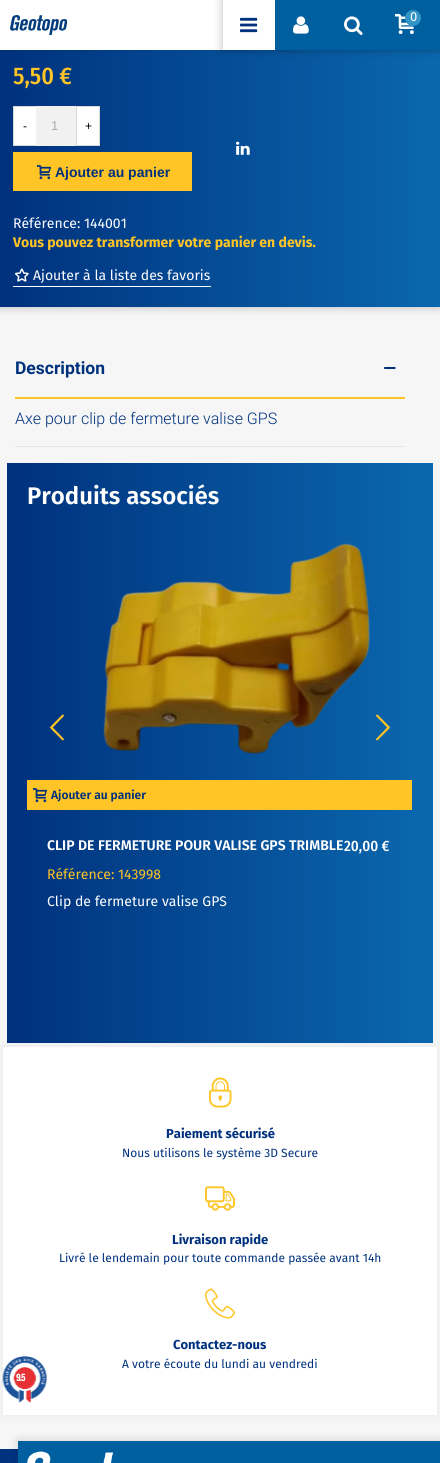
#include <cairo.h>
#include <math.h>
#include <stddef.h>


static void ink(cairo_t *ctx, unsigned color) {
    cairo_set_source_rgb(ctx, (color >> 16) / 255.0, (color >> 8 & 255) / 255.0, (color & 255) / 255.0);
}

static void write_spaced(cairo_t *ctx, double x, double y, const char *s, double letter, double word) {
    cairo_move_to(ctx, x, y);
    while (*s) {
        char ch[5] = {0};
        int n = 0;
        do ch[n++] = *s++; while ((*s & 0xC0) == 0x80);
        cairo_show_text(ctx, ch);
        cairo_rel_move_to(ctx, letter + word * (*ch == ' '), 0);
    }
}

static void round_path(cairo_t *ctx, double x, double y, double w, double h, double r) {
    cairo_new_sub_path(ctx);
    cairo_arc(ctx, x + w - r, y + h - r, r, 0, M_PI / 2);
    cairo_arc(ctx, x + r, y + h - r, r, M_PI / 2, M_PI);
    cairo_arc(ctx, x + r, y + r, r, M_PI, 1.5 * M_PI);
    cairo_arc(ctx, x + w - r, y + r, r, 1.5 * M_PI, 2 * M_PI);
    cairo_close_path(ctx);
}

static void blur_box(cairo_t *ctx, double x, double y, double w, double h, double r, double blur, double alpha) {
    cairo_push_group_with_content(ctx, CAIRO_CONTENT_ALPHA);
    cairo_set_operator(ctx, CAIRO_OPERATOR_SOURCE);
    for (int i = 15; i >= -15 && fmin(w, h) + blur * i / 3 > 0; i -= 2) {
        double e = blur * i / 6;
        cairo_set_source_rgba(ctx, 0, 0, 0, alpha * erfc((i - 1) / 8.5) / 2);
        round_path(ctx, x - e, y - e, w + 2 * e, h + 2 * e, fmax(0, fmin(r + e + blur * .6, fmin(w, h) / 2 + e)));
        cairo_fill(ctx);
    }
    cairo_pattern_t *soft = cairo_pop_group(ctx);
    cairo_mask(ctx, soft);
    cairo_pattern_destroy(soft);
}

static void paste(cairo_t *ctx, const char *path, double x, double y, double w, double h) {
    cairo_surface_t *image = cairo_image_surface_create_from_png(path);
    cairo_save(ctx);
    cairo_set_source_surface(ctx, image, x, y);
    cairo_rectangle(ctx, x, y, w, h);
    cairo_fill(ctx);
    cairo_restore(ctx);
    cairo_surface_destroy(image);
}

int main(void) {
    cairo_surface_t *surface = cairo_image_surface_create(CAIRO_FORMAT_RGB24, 440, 1463);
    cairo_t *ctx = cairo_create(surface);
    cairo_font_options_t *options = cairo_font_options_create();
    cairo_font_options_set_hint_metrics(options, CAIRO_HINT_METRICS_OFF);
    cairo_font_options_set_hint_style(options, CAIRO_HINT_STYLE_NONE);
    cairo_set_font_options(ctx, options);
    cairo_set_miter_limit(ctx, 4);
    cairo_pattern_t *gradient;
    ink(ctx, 0xF6F6F6);
    cairo_paint(ctx);
    ink(ctx, 0x000000);
    blur_box(ctx, 0, -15, 440, 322, 0, 5, 0.26);
    gradient = cairo_pattern_create_linear(0, 95, 440, 95);
    cairo_pattern_add_color_stop_rgba(gradient, 0, 0, 0.192, 0.49, 1);
    cairo_pattern_add_color_stop_rgba(gradient, 1, 0.039, 0.408, 0.686, 1);
    cairo_set_source(ctx, gradient);
    cairo_pattern_destroy(gradient);
    cairo_rectangle(ctx, 0, 50, 440, 257);
    cairo_fill(ctx);
    ink(ctx, 0x000000);
    blur_box(ctx, 0, 0, 440, 50, 0, 2, 0.1);
    ink(ctx, 0xFFFFFF);
    cairo_rectangle(ctx, 0, 0, 223, 50);
    cairo_fill(ctx);
    paste(ctx, "media/1.png", 10, 15, 57, 20);
    ink(ctx, 0x000000);
    blur_box(ctx, 223, 0, 217, 50, 0, 5, 0.26);
    ink(ctx, 0x005F9F);
    cairo_rectangle(ctx, 275, 0, 165, 50);
    cairo_fill(ctx);
    ink(ctx, 0xFFFFFF);
    cairo_rectangle(ctx, 223, 0, 52, 50);
    cairo_fill(ctx);
    paste(ctx, "media/2.png", 240, 17, 18, 16);
    paste(ctx, "media/3.png", 293, 16, 16, 18);
    paste(ctx, "media/4.png", 344, 16, 19, 19);
    paste(ctx, "media/5.png", 395, 14, 19, 20);
    ink(ctx, 0x3295C6);
    cairo_arc(ctx, 413, 18, 8, 0, 2 * M_PI);
    cairo_fill(ctx);
    cairo_select_font_face(ctx, "Fira Sans", CAIRO_FONT_SLANT_NORMAL, CAIRO_FONT_WEIGHT_NORMAL);
    cairo_set_font_size(ctx, 13);
    ink(ctx, 0xFFFFFF);
    cairo_move_to(ctx, 410, 21);
    cairo_show_text(ctx, "0");
    cairo_select_font_face(ctx, "Fira Sans Condensed Medium", CAIRO_FONT_SLANT_NORMAL, CAIRO_FONT_WEIGHT_NORMAL);
    cairo_set_font_size(ctx, 24);
    ink(ctx, 0xFFC425);
    cairo_move_to(ctx, 13, 84);
    cairo_show_text(ctx, "5,50 €");
    ink(ctx, 0xFFFFFF);
    cairo_rectangle(ctx, 13.5, 106.5, 23, 39);
    cairo_fill_preserve(ctx);
    ink(ctx, 0xD9D9D9);
    cairo_set_line_width(ctx, 1);
    cairo_stroke(ctx);
    cairo_select_font_face(ctx, "Liberation Sans", CAIRO_FONT_SLANT_NORMAL, CAIRO_FONT_WEIGHT_NORMAL);
    cairo_set_font_size(ctx, 12);
    ink(ctx, 0x000000);
    cairo_move_to(ctx, 23, 130);
    cairo_show_text(ctx, "-");
    ink(ctx, 0xF1F1F1);
    cairo_rectangle(ctx, 36, 106, 40, 40);
    cairo_fill(ctx);
    cairo_set_font_size(ctx, 13);
    ink(ctx, 0xACAAA6);
    cairo_move_to(ctx, 51, 130);
    cairo_show_text(ctx, "1");
    ink(ctx, 0xFFFFFF);
    cairo_rectangle(ctx, 76.5, 106.5, 23, 39);
    cairo_fill_preserve(ctx);
    ink(ctx, 0xD9D9D9);
    cairo_stroke(ctx);
    cairo_set_font_size(ctx, 12);
    ink(ctx, 0x000000);
    cairo_move_to(ctx, 85, 130);
    cairo_show_text(ctx, "+");
    ink(ctx, 0xFFC425);
    cairo_rectangle(ctx, 13, 152, 179, 39);
    cairo_fill(ctx);
    paste(ctx, "media/6.png", 37, 165, 14, 15);
    cairo_select_font_face(ctx, "Liberation Sans", CAIRO_FONT_SLANT_NORMAL, CAIRO_FONT_WEIGHT_BOLD);
    cairo_set_font_size(ctx, 14);
    ink(ctx, 0x00317D);
    cairo_move_to(ctx, 55, 177);
    cairo_show_text(ctx, "Ajouter au panier");
    paste(ctx, "media/7.png", 236, 141, 14, 14);
    cairo_select_font_face(ctx, "Fira Sans", CAIRO_FONT_SLANT_NORMAL, CAIRO_FONT_WEIGHT_NORMAL);
    ink(ctx, 0xFFFFFF);
    cairo_move_to(ctx, 13, 228);
    cairo_show_text(ctx, "Référence: 144001");
    cairo_select_font_face(ctx, "Fira Sans", CAIRO_FONT_SLANT_NORMAL, CAIRO_FONT_WEIGHT_BOLD);
    ink(ctx, 0xFFC425);
    cairo_move_to(ctx, 13, 247);
    cairo_show_text(ctx, "Vous pouvez transformer votre panier en devis.");
    ink(ctx, 0xFFFFFF);
    cairo_rectangle(ctx, 13, 286, 198, 1);
    cairo_fill(ctx);
    paste(ctx, "media/8.png", 15, 268, 14, 14);
    cairo_select_font_face(ctx, "Fira Sans", CAIRO_FONT_SLANT_NORMAL, CAIRO_FONT_WEIGHT_NORMAL);
    cairo_move_to(ctx, 33, 280);
    cairo_show_text(ctx, "Ajouter à la liste des favoris");
    ink(ctx, 0xE5E5E5);
    cairo_rectangle(ctx, 15, 446, 390, 1);
    cairo_fill(ctx);
    ink(ctx, 0xFFC425);
    cairo_rectangle(ctx, 15, 397, 390, 2);
    cairo_fill(ctx);
    cairo_select_font_face(ctx, "Roboto", CAIRO_FONT_SLANT_NORMAL, CAIRO_FONT_WEIGHT_BOLD);
    cairo_set_font_size(ctx, 17.5);
    ink(ctx, 0x00317D);
    cairo_move_to(ctx, 15, 374);
    cairo_show_text(ctx, "Description");
    paste(ctx, "media/9.png", 384, 367, 12, 2);
    cairo_select_font_face(ctx, "Roboto Light", CAIRO_FONT_SLANT_NORMAL, CAIRO_FONT_WEIGHT_NORMAL);
    cairo_set_font_size(ctx, 16);
    cairo_move_to(ctx, 15, 424);
    cairo_show_text(ctx, "Axe pour clip de fermeture valise GPS");
    gradient = cairo_pattern_create_linear(7, 568, 433, 568);
    cairo_pattern_add_color_stop_rgba(gradient, 0, 0, 0.192, 0.49, 1);
    cairo_pattern_add_color_stop_rgba(gradient, 1, 0.039, 0.408, 0.686, 1);
    cairo_set_source(ctx, gradient);
    cairo_pattern_destroy(gradient);
    cairo_rectangle(ctx, 7, 463, 426, 580);
    cairo_fill(ctx);
    cairo_select_font_face(ctx, "Fira Sans SemiBold", CAIRO_FONT_SLANT_NORMAL, CAIRO_FONT_WEIGHT_NORMAL);
    cairo_set_font_size(ctx, 24);
    ink(ctx, 0xFFFFFF);
    cairo_move_to(ctx, 27, 504);
    cairo_show_text(ctx, "Produits associés");
    paste(ctx, "media/10.png", 50, 714, 14, 27);
    paste(ctx, "media/11.png", 376, 714, 14, 27);
    paste(ctx, "media/12.png", 103, 543, 267, 211);
    ink(ctx, 0xFFC425);
    cairo_rectangle(ctx, 27, 780, 385, 30);
    cairo_fill(ctx);
    paste(ctx, "media/6.png", 33, 788, 14, 15);
    cairo_set_font_size(ctx, 12);
    ink(ctx, 0x00317D);
    cairo_move_to(ctx, 51, 799);
    cairo_show_text(ctx, "Ajouter au panier");
    cairo_set_font_size(ctx, 14);
    ink(ctx, 0xFFFFFF);
    cairo_move_to(ctx, 47, 850);
    cairo_show_text(ctx, "CLIP DE FERMETURE POUR VALISE GPS TRIMBLE");
    cairo_select_font_face(ctx, "Fira Sans Condensed Medium", CAIRO_FONT_SLANT_NORMAL, CAIRO_FONT_WEIGHT_NORMAL);
    cairo_set_font_size(ctx, 15);
    cairo_move_to(ctx, 344, 851);
    cairo_show_text(ctx, "20,00 €");
    cairo_select_font_face(ctx, "Fira Sans", CAIRO_FONT_SLANT_NORMAL, CAIRO_FONT_WEIGHT_NORMAL);
    cairo_set_font_size(ctx, 14);
    ink(ctx, 0xFFC425);
    cairo_move_to(ctx, 47, 879);
    cairo_show_text(ctx, "Référence: 143998");
    ink(ctx, 0xFFFFFF);
    cairo_move_to(ctx, 47, 906);
    cairo_show_text(ctx, "Clip de fermeture valise GPS");
    ink(ctx, 0x000000);
    blur_box(ctx, 3, 1047, 434, 368, 0, 5, 0.06);
    ink(ctx, 0xFFFFFF);
    cairo_rectangle(ctx, 3, 1047, 434, 368);
    cairo_fill(ctx);
    paste(ctx, "media/13.png", 209, 1077, 23, 31);
    cairo_select_font_face(ctx, "Fira Sans", CAIRO_FONT_SLANT_NORMAL, CAIRO_FONT_WEIGHT_BOLD);
    cairo_set_font_size(ctx, 13);
    ink(ctx, 0x00317D);
    cairo_move_to(ctx, 166, 1138);
    cairo_show_text(ctx, "Paiement sécurisé");
    cairo_select_font_face(ctx, "Fira Sans", CAIRO_FONT_SLANT_NORMAL, CAIRO_FONT_WEIGHT_NORMAL);
    cairo_set_font_size(ctx, 12);
    cairo_move_to(ctx, 122, 1157);
    cairo_show_text(ctx, "Nous utilisons le système 3D Secure");
    paste(ctx, "media/14.png", 205, 1186, 30, 25);
    cairo_select_font_face(ctx, "Fira Sans", CAIRO_FONT_SLANT_NORMAL, CAIRO_FONT_WEIGHT_BOLD);
    cairo_set_font_size(ctx, 13);
    cairo_move_to(ctx, 172, 1244);
    cairo_show_text(ctx, "Livraison rapide");
    cairo_select_font_face(ctx, "Fira Sans", CAIRO_FONT_SLANT_NORMAL, CAIRO_FONT_WEIGHT_NORMAL);
    cairo_set_font_size(ctx, 12);
    cairo_move_to(ctx, 59, 1262);
    cairo_show_text(ctx, "Livré le lendemain pour toute commande passée avant 14h");
    paste(ctx, "media/15.png", 205, 1288, 30, 31);
    cairo_select_font_face(ctx, "Fira Sans", CAIRO_FONT_SLANT_NORMAL, CAIRO_FONT_WEIGHT_BOLD);
    cairo_set_font_size(ctx, 13);
    cairo_move_to(ctx, 173, 1349);
    cairo_show_text(ctx, "Contactez-nous");
    cairo_select_font_face(ctx, "Fira Sans", CAIRO_FONT_SLANT_NORMAL, CAIRO_FONT_WEIGHT_NORMAL);
    cairo_set_font_size(ctx, 12);
    cairo_move_to(ctx, 122, 1368);
    cairo_show_text(ctx, "A votre écoute du lundi au vendredi");
    gradient = cairo_pattern_create_linear(0, 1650, 440, 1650);
    cairo_pattern_add_color_stop_rgba(gradient, 0, 0, 0.192, 0.49, 1);
    cairo_pattern_add_color_stop_rgba(gradient, 1, 0.039, 0.408, 0.686, 1);
    cairo_set_source(ctx, gradient);
    cairo_pattern_destroy(gradient);
    cairo_rectangle(ctx, 0, 1449, 18, 14);
    cairo_fill(ctx);
    ink(ctx, 0x000000);
    blur_box(ctx, 18, 1441, 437, 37, 0, 5, 0.16);
    ink(ctx, 0x005F9F);
    cairo_rectangle(ctx, 18, 1441, 422, 22);
    cairo_fill(ctx);
    paste(ctx, "media/16.png", 27, 1451, 87, 12);
    paste(ctx, "media/17.png", 2, 1356, 45, 47);
    cairo_select_font_face(ctx, "Oswald", CAIRO_FONT_SLANT_NORMAL, CAIRO_FONT_WEIGHT_BOLD);
    cairo_set_font_size(ctx, 9);
    ink(ctx, 0xFFFFFF);
    write_spaced(ctx, 16, 1381, "9.5", -1, 0);
    cairo_surface_write_to_png(surface, "image.png");
    cairo_font_options_destroy(options);
    cairo_destroy(ctx);
    cairo_surface_destroy(surface);
    return 0;
}
